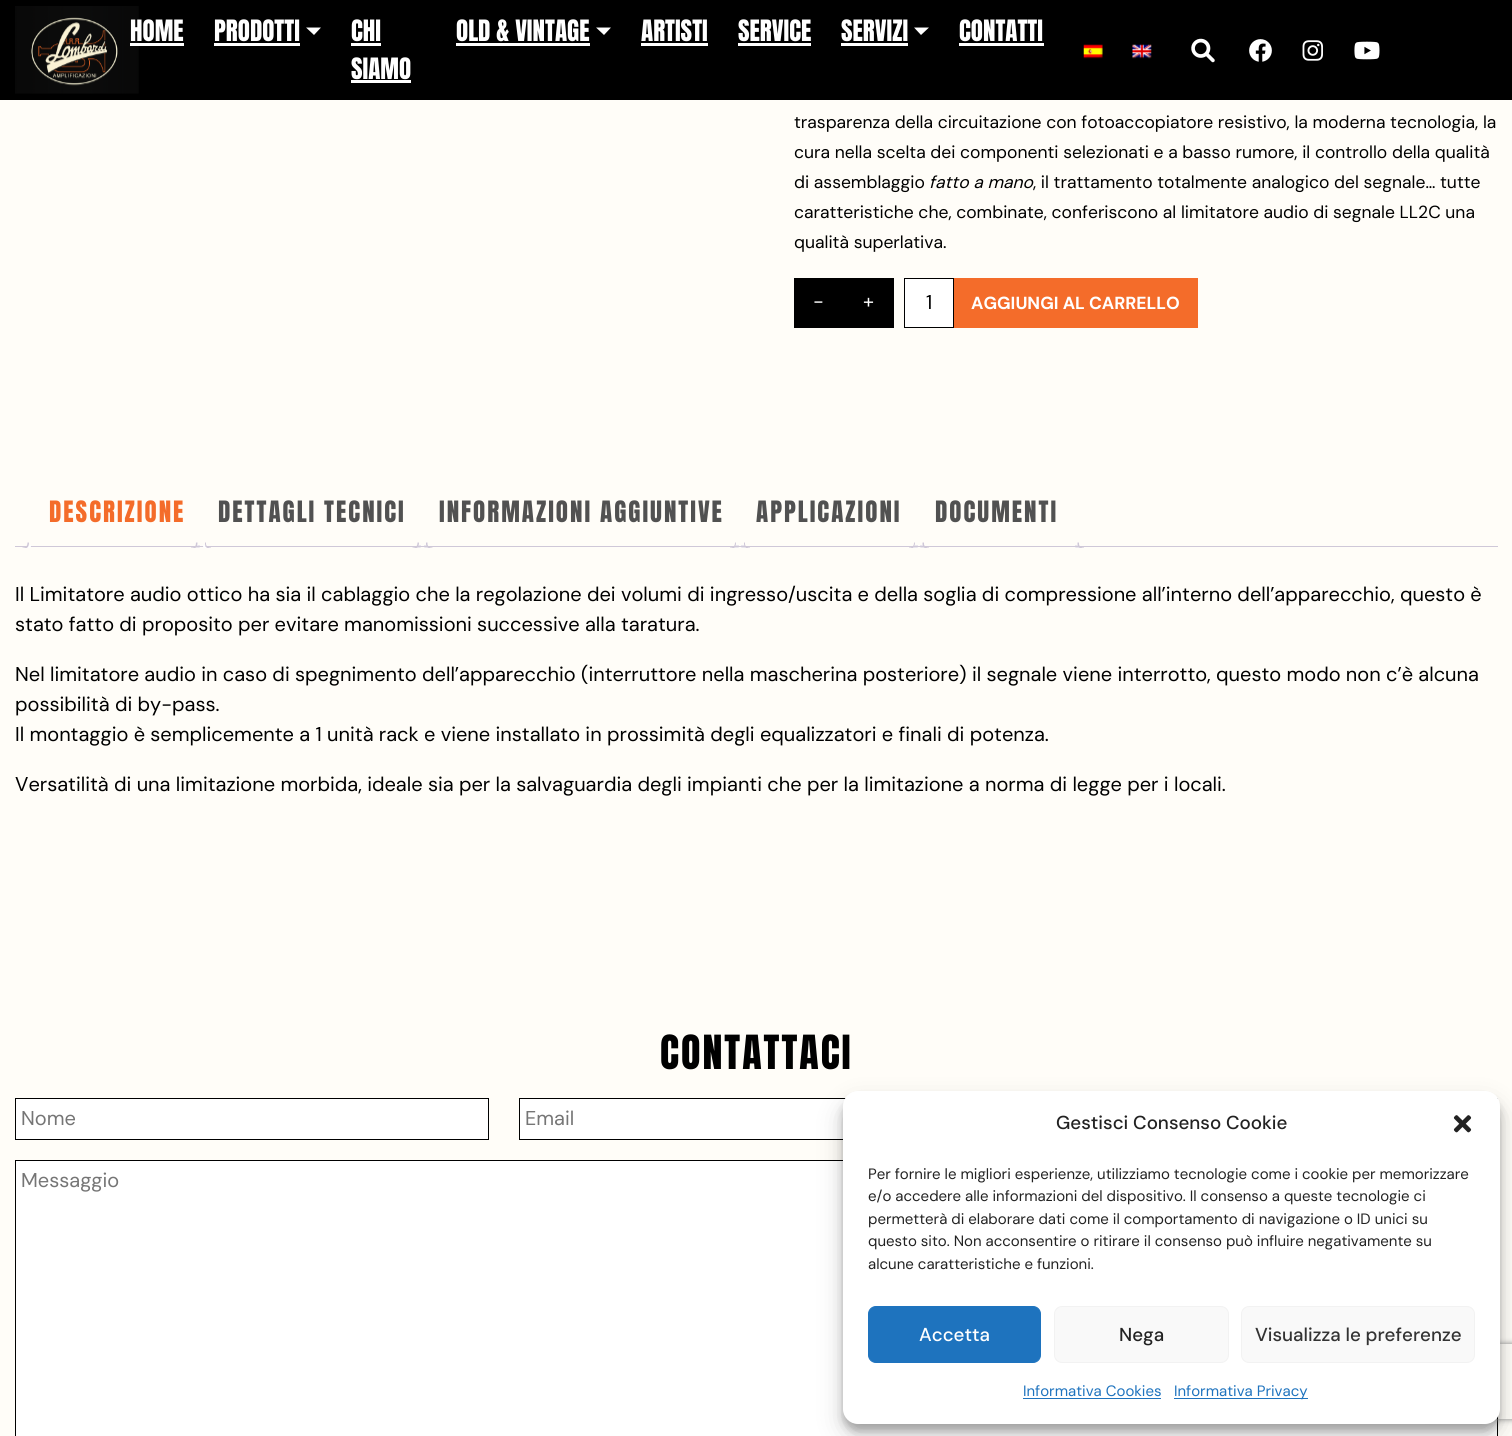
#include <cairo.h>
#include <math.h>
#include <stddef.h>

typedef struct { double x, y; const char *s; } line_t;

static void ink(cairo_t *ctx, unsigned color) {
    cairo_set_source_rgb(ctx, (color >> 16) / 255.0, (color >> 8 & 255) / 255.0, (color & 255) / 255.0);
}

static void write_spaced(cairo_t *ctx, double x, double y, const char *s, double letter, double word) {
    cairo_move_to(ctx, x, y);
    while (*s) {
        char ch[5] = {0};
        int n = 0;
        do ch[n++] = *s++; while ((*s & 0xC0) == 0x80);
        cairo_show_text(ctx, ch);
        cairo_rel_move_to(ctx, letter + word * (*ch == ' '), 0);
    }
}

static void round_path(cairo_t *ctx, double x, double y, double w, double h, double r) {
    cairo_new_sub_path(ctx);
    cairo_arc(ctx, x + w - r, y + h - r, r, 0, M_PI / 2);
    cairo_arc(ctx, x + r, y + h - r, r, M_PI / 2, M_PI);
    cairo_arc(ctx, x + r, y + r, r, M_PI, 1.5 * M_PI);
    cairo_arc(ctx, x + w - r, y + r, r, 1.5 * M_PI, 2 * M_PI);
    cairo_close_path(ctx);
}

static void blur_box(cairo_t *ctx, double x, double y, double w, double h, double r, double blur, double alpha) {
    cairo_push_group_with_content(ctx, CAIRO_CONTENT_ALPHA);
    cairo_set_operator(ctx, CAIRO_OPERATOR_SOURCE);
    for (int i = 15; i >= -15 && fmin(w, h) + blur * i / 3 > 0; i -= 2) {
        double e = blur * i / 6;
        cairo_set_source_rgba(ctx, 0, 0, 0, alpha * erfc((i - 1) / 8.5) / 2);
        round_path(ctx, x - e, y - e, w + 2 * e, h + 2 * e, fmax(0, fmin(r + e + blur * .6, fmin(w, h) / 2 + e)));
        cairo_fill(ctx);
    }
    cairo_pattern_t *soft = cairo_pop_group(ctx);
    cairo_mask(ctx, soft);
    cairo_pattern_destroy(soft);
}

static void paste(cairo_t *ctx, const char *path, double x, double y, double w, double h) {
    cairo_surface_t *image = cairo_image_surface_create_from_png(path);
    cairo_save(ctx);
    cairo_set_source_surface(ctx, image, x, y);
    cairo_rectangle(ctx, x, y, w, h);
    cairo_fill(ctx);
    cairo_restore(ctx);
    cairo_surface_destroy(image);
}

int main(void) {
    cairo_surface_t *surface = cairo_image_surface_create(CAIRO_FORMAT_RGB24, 1512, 1436);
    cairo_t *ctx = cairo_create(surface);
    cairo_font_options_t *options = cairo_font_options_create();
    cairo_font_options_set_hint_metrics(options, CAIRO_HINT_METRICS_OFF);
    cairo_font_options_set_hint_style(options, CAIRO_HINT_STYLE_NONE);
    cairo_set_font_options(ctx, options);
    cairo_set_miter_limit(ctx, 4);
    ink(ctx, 0xFFFDF8);
    cairo_paint(ctx);
    ink(ctx, 0x000000);
    cairo_rectangle(ctx, 0, 0, 1512, 100);
    cairo_fill(ctx);
    paste(ctx, "media/1.png", 15, 6, 124, 88);
    cairo_select_font_face(ctx, "Anton", CAIRO_FONT_SLANT_NORMAL, CAIRO_FONT_WEIGHT_NORMAL);
    cairo_set_font_size(ctx, 25);
    ink(ctx, 0xFFFFFF);
    cairo_move_to(ctx, 130, 41);
    cairo_show_text(ctx, "HOME");
    cairo_rectangle(ctx, 130, 43, 54, 3);
    cairo_fill(ctx);
    cairo_move_to(ctx, 214, 41);
    cairo_show_text(ctx, "PRODOTTI");
    cairo_rectangle(ctx, 214, 43, 86, 3);
    cairo_fill(ctx);
    cairo_new_path(ctx);
    cairo_move_to(ctx, 306, 27.5);
    cairo_line_to(ctx, 321, 27.5);
    cairo_line_to(ctx, 314, 35);
    cairo_close_path(ctx);
    cairo_fill(ctx);
    cairo_move_to(ctx, 351, 41);
    cairo_show_text(ctx, "CHI");
    cairo_rectangle(ctx, 351, 43, 30, 3);
    cairo_fill(ctx);
    cairo_move_to(ctx, 351, 79);
    cairo_show_text(ctx, "SIAMO");
    cairo_rectangle(ctx, 351, 80, 60, 3);
    cairo_fill(ctx);
    cairo_move_to(ctx, 456, 41);
    cairo_show_text(ctx, "OLD & VINTAGE");
    cairo_rectangle(ctx, 456, 43, 134, 3);
    cairo_fill(ctx);
    cairo_new_path(ctx);
    cairo_move_to(ctx, 596, 27.5);
    cairo_line_to(ctx, 611, 27.5);
    cairo_line_to(ctx, 604, 35);
    cairo_close_path(ctx);
    cairo_fill(ctx);
    cairo_move_to(ctx, 641, 41);
    cairo_show_text(ctx, "ARTISTI");
    cairo_rectangle(ctx, 641, 43, 67, 3);
    cairo_fill(ctx);
    cairo_move_to(ctx, 738, 41);
    cairo_show_text(ctx, "SERVICE");
    cairo_rectangle(ctx, 738, 43, 73, 3);
    cairo_fill(ctx);
    cairo_move_to(ctx, 841, 41);
    cairo_show_text(ctx, "SERVIZI");
    cairo_rectangle(ctx, 841, 43, 67, 3);
    cairo_fill(ctx);
    cairo_new_path(ctx);
    cairo_move_to(ctx, 914, 27.5);
    cairo_line_to(ctx, 929, 27.5);
    cairo_line_to(ctx, 921, 35);
    cairo_close_path(ctx);
    cairo_fill(ctx);
    cairo_move_to(ctx, 959, 41);
    cairo_show_text(ctx, "CONTATTI");
    cairo_rectangle(ctx, 959, 43, 85, 3);
    cairo_fill(ctx);
    paste(ctx, "media/2.png", 1083, 44, 20, 15);
    paste(ctx, "media/3.png", 1132, 44, 20, 15);
    paste(ctx, "media/4.png", 1191, 38, 24, 25);
    paste(ctx, "media/5.png", 1249, 39, 23, 23);
    paste(ctx, "media/6.png", 1302, 40, 21, 21);
    paste(ctx, "media/7.png", 1354, 41, 26, 19);
    cairo_select_font_face(ctx, "DM Sans", CAIRO_FONT_SLANT_NORMAL, CAIRO_FONT_WEIGHT_NORMAL);
    cairo_set_font_size(ctx, 17.5);
    ink(ctx, 0x000000);
    {
        static const line_t items[] = {
            {794, 128, "trasparenza della circuitazione con fotoaccopiatore resistivo, la moderna tecnologia, la"},
            {794, 158, "cura nella scelta dei componenti selezionati e a basso rumore, il controllo della qualità"},
            {794, 188, "di assemblaggio"},
        };
        for (size_t i = 0; i < sizeof items / sizeof *items; i++) {
            cairo_move_to(ctx, items[i].x, items[i].y);
            cairo_show_text(ctx, items[i].s);
        }
    }
    cairo_select_font_face(ctx, "DM Sans", CAIRO_FONT_SLANT_ITALIC, CAIRO_FONT_WEIGHT_NORMAL);
    cairo_move_to(ctx, 929, 188);
    cairo_show_text(ctx, "fatto a mano");
    cairo_select_font_face(ctx, "DM Sans", CAIRO_FONT_SLANT_NORMAL, CAIRO_FONT_WEIGHT_NORMAL);
    {
        static const line_t items[] = {
            {1033, 188, ", il trattamento totalmente analogico del segnale… tutte"},
            {794, 218, "caratteristiche che, combinate, conferiscono al limitatore audio di segnale LL2C una"},
            {794, 248, "qualità superlativa."},
        };
        for (size_t i = 0; i < sizeof items / sizeof *items; i++) {
            cairo_move_to(ctx, items[i].x, items[i].y);
            cairo_show_text(ctx, items[i].s);
        }
    }
    cairo_rectangle(ctx, 794, 278, 100, 50);
    cairo_fill(ctx);
    cairo_set_font_size(ctx, 20);
    ink(ctx, 0xFFFFFF);
    cairo_move_to(ctx, 813, 308);
    cairo_show_text(ctx, "-");
    cairo_move_to(ctx, 863, 308);
    cairo_show_text(ctx, "+");
    cairo_rectangle(ctx, 904.5, 278.5, 49, 49);
    cairo_fill_preserve(ctx);
    ink(ctx, 0x000000);
    cairo_set_line_width(ctx, 1);
    cairo_stroke(ctx);
    cairo_move_to(ctx, 926, 309);
    cairo_show_text(ctx, "1");
    ink(ctx, 0xF46C2A);
    cairo_rectangle(ctx, 954, 278, 244, 50);
    cairo_fill(ctx);
    cairo_select_font_face(ctx, "DM Sans", CAIRO_FONT_SLANT_NORMAL, CAIRO_FONT_WEIGHT_BOLD);
    cairo_set_font_size(ctx, 17.5);
    ink(ctx, 0xFFFFFF);
    cairo_move_to(ctx, 971, 309);
    cairo_show_text(ctx, "AGGIUNGI AL CARRELLO");
    cairo_select_font_face(ctx, "Anton", CAIRO_FONT_SLANT_NORMAL, CAIRO_FONT_WEIGHT_NORMAL);
    cairo_set_font_size(ctx, 25);
    ink(ctx, 0xF46C2A);
    write_spaced(ctx, 49, 522, "DESCRIZIONE", 2, 0);
    cairo_save(ctx);
    cairo_rectangle(ctx, 15, 488, 1483, 60);
    cairo_clip(ctx);
    ink(ctx, 0xE9E6ED);
    cairo_new_path(ctx);
    cairo_move_to(ctx, 194, 548.5);
    cairo_line_to(ctx, 194, 551);
    cairo_curve_to(ctx, 198, 551, 200, 549, 200, 545);
    cairo_line_to(ctx, 197.5, 545);
    cairo_curve_to(ctx, 197, 546.5, 195.5, 548, 194, 548.5);
    cairo_close_path(ctx);
    cairo_fill(ctx);
    ink(ctx, 0xCFC8D8);
    cairo_set_fill_rule(ctx, CAIRO_FILL_RULE_EVEN_ODD);
    cairo_new_path(ctx);
    cairo_move_to(ctx, 191, 542.5);
    cairo_line_to(ctx, 197.5, 542.5);
    cairo_curve_to(ctx, 197.5, 547, 195.5, 549, 191, 549);
    cairo_close_path(ctx);
    cairo_move_to(ctx, 191, 542.5);
    cairo_line_to(ctx, 196, 542.5);
    cairo_curve_to(ctx, 196, 546, 195, 547.5, 191, 547.5);
    cairo_close_path(ctx);
    cairo_fill(ctx);
    ink(ctx, 0xE9E6ED);
    cairo_set_fill_rule(ctx, CAIRO_FILL_RULE_WINDING);
    cairo_new_path(ctx);
    cairo_move_to(ctx, 424, 545);
    cairo_curve_to(ctx, 424, 549, 426, 551, 430, 551);
    cairo_line_to(ctx, 430, 548.5);
    cairo_curve_to(ctx, 428, 548, 427, 547, 426.5, 545);
    cairo_close_path(ctx);
    cairo_fill(ctx);
    ink(ctx, 0xCFC8D8);
    cairo_set_fill_rule(ctx, CAIRO_FILL_RULE_EVEN_ODD);
    cairo_new_path(ctx);
    cairo_move_to(ctx, 426, 542.5);
    cairo_line_to(ctx, 432.5, 542.5);
    cairo_line_to(ctx, 432.5, 549);
    cairo_curve_to(ctx, 429.5, 549, 426, 547.5, 426, 544);
    cairo_close_path(ctx);
    cairo_move_to(ctx, 427.5, 542.5);
    cairo_line_to(ctx, 432.5, 542.5);
    cairo_line_to(ctx, 432.5, 547.5);
    cairo_curve_to(ctx, 430, 547.5, 427.5, 546.5, 427.5, 544);
    cairo_close_path(ctx);
    cairo_fill(ctx);
    ink(ctx, 0xE9E6ED);
    cairo_set_fill_rule(ctx, CAIRO_FILL_RULE_WINDING);
    cairo_new_path(ctx);
    cairo_move_to(ctx, 415, 548.5);
    cairo_line_to(ctx, 415, 551);
    cairo_curve_to(ctx, 419, 551, 421, 549, 421, 545);
    cairo_line_to(ctx, 418.5, 545);
    cairo_curve_to(ctx, 418, 547, 417, 548, 415, 548.5);
    cairo_close_path(ctx);
    cairo_fill(ctx);
    ink(ctx, 0xCFC8D8);
    cairo_set_fill_rule(ctx, CAIRO_FILL_RULE_EVEN_ODD);
    cairo_new_path(ctx);
    cairo_move_to(ctx, 412.5, 542.5);
    cairo_line_to(ctx, 419, 542.5);
    cairo_curve_to(ctx, 419, 547, 417, 549, 412.5, 549);
    cairo_close_path(ctx);
    cairo_move_to(ctx, 412.5, 542.5);
    cairo_line_to(ctx, 417.5, 542.5);
    cairo_curve_to(ctx, 417.5, 546, 416, 547.5, 412.5, 547.5);
    cairo_close_path(ctx);
    cairo_fill(ctx);
    ink(ctx, 0xE9E6ED);
    cairo_set_fill_rule(ctx, CAIRO_FILL_RULE_WINDING);
    cairo_new_path(ctx);
    cairo_move_to(ctx, 741, 545);
    cairo_curve_to(ctx, 741, 550, 743.5, 551, 748, 551);
    cairo_line_to(ctx, 748, 548.5);
    cairo_curve_to(ctx, 746, 548.5, 744.5, 547, 744, 545);
    cairo_close_path(ctx);
    cairo_fill(ctx);
    ink(ctx, 0xCFC8D8);
    cairo_set_fill_rule(ctx, CAIRO_FILL_RULE_EVEN_ODD);
    cairo_new_path(ctx);
    cairo_move_to(ctx, 744, 542.5);
    cairo_line_to(ctx, 750, 542.5);
    cairo_line_to(ctx, 750, 549);
    cairo_curve_to(ctx, 747, 549, 744, 547.5, 744, 544);
    cairo_close_path(ctx);
    cairo_move_to(ctx, 745, 542.5);
    cairo_line_to(ctx, 750, 542.5);
    cairo_line_to(ctx, 750, 547.5);
    cairo_curve_to(ctx, 747.5, 547.5, 745, 546.5, 745, 544);
    cairo_close_path(ctx);
    cairo_fill(ctx);
    ink(ctx, 0xE9E6ED);
    cairo_set_fill_rule(ctx, CAIRO_FILL_RULE_WINDING);
    cairo_new_path(ctx);
    cairo_move_to(ctx, 733, 548.5);
    cairo_line_to(ctx, 733, 551);
    cairo_curve_to(ctx, 737, 551, 739, 549, 739, 545);
    cairo_line_to(ctx, 736, 545);
    cairo_curve_to(ctx, 735.5, 546.5, 734.5, 548, 733, 548.5);
    cairo_close_path(ctx);
    cairo_fill(ctx);
    ink(ctx, 0xCFC8D8);
    cairo_set_fill_rule(ctx, CAIRO_FILL_RULE_EVEN_ODD);
    cairo_new_path(ctx);
    cairo_move_to(ctx, 730, 542.5);
    cairo_line_to(ctx, 736, 542.5);
    cairo_curve_to(ctx, 736, 547, 734.5, 549, 730, 549);
    cairo_close_path(ctx);
    cairo_move_to(ctx, 730, 542.5);
    cairo_line_to(ctx, 735, 542.5);
    cairo_curve_to(ctx, 735, 546, 733.5, 547.5, 730, 547.5);
    cairo_close_path(ctx);
    cairo_fill(ctx);
    ink(ctx, 0xE9E6ED);
    cairo_set_fill_rule(ctx, CAIRO_FILL_RULE_WINDING);
    cairo_new_path(ctx);
    cairo_move_to(ctx, 920, 545);
    cairo_curve_to(ctx, 920, 549, 922, 551, 926, 551);
    cairo_line_to(ctx, 926, 548.5);
    cairo_curve_to(ctx, 924.5, 548, 923, 546.5, 922.5, 545);
    cairo_close_path(ctx);
    cairo_fill(ctx);
    ink(ctx, 0xCFC8D8);
    cairo_set_fill_rule(ctx, CAIRO_FILL_RULE_EVEN_ODD);
    cairo_new_path(ctx);
    cairo_move_to(ctx, 922.5, 542.5);
    cairo_line_to(ctx, 929, 542.5);
    cairo_line_to(ctx, 929, 549);
    cairo_curve_to(ctx, 925.5, 549, 922.5, 547.5, 922.5, 544);
    cairo_close_path(ctx);
    cairo_move_to(ctx, 924, 542.5);
    cairo_line_to(ctx, 929, 542.5);
    cairo_line_to(ctx, 929, 547.5);
    cairo_curve_to(ctx, 926.5, 547.5, 924, 546.5, 924, 544);
    cairo_close_path(ctx);
    cairo_fill(ctx);
    ink(ctx, 0xE9E6ED);
    cairo_set_fill_rule(ctx, CAIRO_FILL_RULE_WINDING);
    cairo_new_path(ctx);
    cairo_move_to(ctx, 911, 548.5);
    cairo_line_to(ctx, 911, 551);
    cairo_curve_to(ctx, 915.5, 551, 918, 550, 918, 545);
    cairo_line_to(ctx, 915, 545);
    cairo_curve_to(ctx, 914.5, 547, 913, 548.5, 911, 548.5);
    cairo_close_path(ctx);
    cairo_fill(ctx);
    ink(ctx, 0xCFC8D8);
    cairo_set_fill_rule(ctx, CAIRO_FILL_RULE_EVEN_ODD);
    cairo_new_path(ctx);
    cairo_move_to(ctx, 909, 542.5);
    cairo_line_to(ctx, 915, 542.5);
    cairo_curve_to(ctx, 915, 547, 913, 549, 909, 549);
    cairo_close_path(ctx);
    cairo_move_to(ctx, 909, 542.5);
    cairo_line_to(ctx, 914, 542.5);
    cairo_curve_to(ctx, 914, 546, 912.5, 547.5, 909, 547.5);
    cairo_close_path(ctx);
    cairo_fill(ctx);
    ink(ctx, 0xE9E6ED);
    cairo_set_fill_rule(ctx, CAIRO_FILL_RULE_WINDING);
    cairo_new_path(ctx);
    cairo_move_to(ctx, 1075, 545);
    cairo_curve_to(ctx, 1075, 549, 1077, 551, 1081, 551);
    cairo_line_to(ctx, 1081, 548.5);
    cairo_curve_to(ctx, 1079.5, 548, 1078, 546.5, 1077.5, 545);
    cairo_close_path(ctx);
    cairo_fill(ctx);
    ink(ctx, 0xCFC8D8);
    cairo_set_fill_rule(ctx, CAIRO_FILL_RULE_EVEN_ODD);
    cairo_new_path(ctx);
    cairo_move_to(ctx, 1077.5, 542.5);
    cairo_line_to(ctx, 1084, 542.5);
    cairo_line_to(ctx, 1084, 549);
    cairo_curve_to(ctx, 1080.5, 549, 1077.5, 547.5, 1077.5, 544);
    cairo_close_path(ctx);
    cairo_move_to(ctx, 1079, 542.5);
    cairo_line_to(ctx, 1084, 542.5);
    cairo_line_to(ctx, 1084, 547.5);
    cairo_curve_to(ctx, 1081.5, 547.5, 1079, 546.5, 1079, 544);
    cairo_close_path(ctx);
    cairo_fill(ctx);
    cairo_restore(ctx);
    ink(ctx, 0xCFC8D8);
    cairo_rectangle(ctx, 15, 546, 1483, 1);
    cairo_fill(ctx);
    cairo_save(ctx);
    cairo_rectangle(ctx, 15, 488, 1483, 60);
    cairo_clip(ctx);
    ink(ctx, 0xFFFFFF);
    cairo_new_path(ctx);
    cairo_move_to(ctx, 25, 548.5);
    cairo_line_to(ctx, 25, 551);
    cairo_curve_to(ctx, 29, 551, 31, 549, 31, 545);
    cairo_line_to(ctx, 28.5, 545);
    cairo_curve_to(ctx, 28, 547, 27, 548, 25, 548.5);
    cairo_close_path(ctx);
    cairo_fill(ctx);
    ink(ctx, 0xCFC8D8);
    cairo_set_fill_rule(ctx, CAIRO_FILL_RULE_EVEN_ODD);
    cairo_new_path(ctx);
    cairo_move_to(ctx, 22.5, 542.5);
    cairo_line_to(ctx, 29, 542.5);
    cairo_curve_to(ctx, 29, 547, 27, 549, 22.5, 549);
    cairo_close_path(ctx);
    cairo_move_to(ctx, 22.5, 542.5);
    cairo_line_to(ctx, 27.5, 542.5);
    cairo_curve_to(ctx, 27.5, 546, 26, 547.5, 22.5, 547.5);
    cairo_close_path(ctx);
    cairo_fill(ctx);
    ink(ctx, 0xFFFFFF);
    cairo_set_fill_rule(ctx, CAIRO_FILL_RULE_WINDING);
    cairo_new_path(ctx);
    cairo_move_to(ctx, 203, 545);
    cairo_curve_to(ctx, 203, 549, 205, 551, 209, 551);
    cairo_line_to(ctx, 209, 548.5);
    cairo_curve_to(ctx, 207, 548.5, 205.5, 547, 205, 545);
    cairo_close_path(ctx);
    cairo_fill(ctx);
    ink(ctx, 0xCFC8D8);
    cairo_set_fill_rule(ctx, CAIRO_FILL_RULE_EVEN_ODD);
    cairo_new_path(ctx);
    cairo_move_to(ctx, 205, 542.5);
    cairo_line_to(ctx, 211, 542.5);
    cairo_line_to(ctx, 211, 549);
    cairo_curve_to(ctx, 208, 549, 205, 547.5, 205, 544);
    cairo_close_path(ctx);
    cairo_move_to(ctx, 206, 542.5);
    cairo_line_to(ctx, 211, 542.5);
    cairo_line_to(ctx, 211, 547.5);
    cairo_curve_to(ctx, 209, 547.5, 206, 546.5, 206, 544);
    cairo_close_path(ctx);
    cairo_fill(ctx);
    cairo_restore(ctx);
    ink(ctx, 0x515151);
    {
        static const line_t items[] = {
            {218, 522, "DETTAGLI TECNICI"},
            {439, 522, "INFORMAZIONI AGGIUNTIVE"},
            {756, 522, "APPLICAZIONI"},
            {935, 522, "DOCUMENTI"},
        };
        for (size_t i = 0; i < sizeof items / sizeof *items; i++) {
            write_spaced(ctx, items[i].x, items[i].y, items[i].s, 2, 0);
        }
    }
    cairo_select_font_face(ctx, "DM Sans", CAIRO_FONT_SLANT_NORMAL, CAIRO_FONT_WEIGHT_NORMAL);
    cairo_set_font_size(ctx, 20);
    ink(ctx, 0x000000);
    {
        static const line_t items[] = {
            {15, 601, "Il Limitatore audio ottico ha sia il cablaggio che la regolazione dei volumi di ingresso/uscita e della soglia di compressione all’interno dell’apparecchio, questo è"},
            {15, 631, "stato fatto di proposito per evitare manomissioni successive alla taratura."},
            {15, 681, "Nel limitatore audio in caso di spegnimento dell’apparecchio (interruttore nella mascherina posteriore) il segnale viene interrotto, questo modo non c’è alcuna"},
            {15, 711, "possibilità di by-pass."},
            {15, 741, "Il montaggio è semplicemente a 1 unità rack e viene installato in prossimità degli equalizzatori e finali di potenza."},
            {15, 791, "Versatilità di una limitazione morbida, ideale sia per la salvaguardia degli impianti che per la limitazione a norma di legge per i locali."},
        };
        for (size_t i = 0; i < sizeof items / sizeof *items; i++) {
            cairo_move_to(ctx, items[i].x, items[i].y);
            cairo_show_text(ctx, items[i].s);
        }
    }
    cairo_select_font_face(ctx, "Anton", CAIRO_FONT_SLANT_NORMAL, CAIRO_FONT_WEIGHT_NORMAL);
    cairo_set_font_size(ctx, 40);
    write_spaced(ctx, 660, 1069, "CONTATTACI", 2, 0);
    ink(ctx, 0xFFFFFF);
    cairo_rectangle(ctx, 15.5, 1098.5, 473, 41);
    cairo_fill_preserve(ctx);
    ink(ctx, 0x000000);
    cairo_stroke(ctx);
    cairo_select_font_face(ctx, "DM Sans", CAIRO_FONT_SLANT_NORMAL, CAIRO_FONT_WEIGHT_NORMAL);
    cairo_set_font_size(ctx, 20);
    ink(ctx, 0x757575);
    cairo_move_to(ctx, 21, 1125);
    cairo_show_text(ctx, "Nome");
    ink(ctx, 0xFFFFFF);
    cairo_rectangle(ctx, 520, 1099, 325, 40);
    cairo_fill(ctx);
    cairo_rectangle(ctx, 519.5, 1098.5, 474, 41);
    ink(ctx, 0x000000);
    cairo_stroke(ctx);
    ink(ctx, 0x757575);
    cairo_move_to(ctx, 525, 1125);
    cairo_show_text(ctx, "Email");
    cairo_rectangle(ctx, 1024.5, 1098.5, 473, 41);
    ink(ctx, 0x000000);
    cairo_stroke(ctx);
    ink(ctx, 0xFFFFFF);
    cairo_rectangle(ctx, 15.5, 1160.5, 1482, 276);
    cairo_fill_preserve(ctx);
    ink(ctx, 0x000000);
    cairo_stroke(ctx);
    ink(ctx, 0x757575);
    cairo_move_to(ctx, 21, 1187);
    cairo_show_text(ctx, "Messaggio");
    ink(ctx, 0x000000);
    blur_box(ctx, 843, 1099, 657, 332, 15, 4, 0.23);
    blur_box(ctx, 843, 1104, 657, 332, 15, 12.5, 0.19);
    cairo_save(ctx);
    cairo_set_fill_rule(ctx, CAIRO_FILL_RULE_EVEN_ODD);
    cairo_new_path(ctx);
    cairo_move_to(ctx, 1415, 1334);
    cairo_line_to(ctx, 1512, 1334);
    cairo_line_to(ctx, 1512, 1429);
    cairo_line_to(ctx, 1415, 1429);
    cairo_close_path(ctx);
    cairo_move_to(ctx, 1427.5, 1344);
    cairo_line_to(ctx, 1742.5, 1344);
    cairo_curve_to(ctx, 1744, 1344, 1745, 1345, 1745, 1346.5);
    cairo_line_to(ctx, 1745, 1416.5);
    cairo_curve_to(ctx, 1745, 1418, 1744, 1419, 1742.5, 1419);
    cairo_line_to(ctx, 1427.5, 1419);
    cairo_curve_to(ctx, 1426, 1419, 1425, 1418, 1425, 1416.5);
    cairo_line_to(ctx, 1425, 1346.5);
    cairo_curve_to(ctx, 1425, 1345, 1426, 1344, 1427.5, 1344);
    cairo_close_path(ctx);
    cairo_clip(ctx);
    ink(ctx, 0x808080);
    blur_box(ctx, 1425, 1344, 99, 75, 2.5, 3, 1);
    cairo_restore(ctx);
    ink(ctx, 0xFFFFFF);
    round_path(ctx, 843, 1091, 657, 333, 15);
    cairo_fill(ctx);
    cairo_select_font_face(ctx, "DM Sans Medium", CAIRO_FONT_SLANT_NORMAL, CAIRO_FONT_WEIGHT_NORMAL);
    cairo_set_font_size(ctx, 18.75);
    ink(ctx, 0x222222);
    cairo_move_to(ctx, 1056, 1129);
    cairo_show_text(ctx, "Gestisci Consenso Cookie");
    paste(ctx, "media/8.png", 1453, 1115, 19, 18);
    cairo_select_font_face(ctx, "DM Sans", CAIRO_FONT_SLANT_NORMAL, CAIRO_FONT_WEIGHT_NORMAL);
    cairo_set_font_size(ctx, 15);
    {
        static const line_t items[] = {
            {868, 1179, "Per fornire le migliori esperienze, utilizziamo tecnologie come i cookie per memorizzare"},
            {868, 1201, "e/o accedere alle informazioni del dispositivo. Il consenso a queste tecnologie ci"},
            {868, 1224, "permetterà di elaborare dati come il comportamento di navigazione o ID unici su"},
            {868, 1246, "questo sito. Non acconsentire o ritirare il consenso può influire negativamente su"},
            {868, 1269, "alcune caratteristiche e funzioni."},
        };
        for (size_t i = 0; i < sizeof items / sizeof *items; i++) {
            cairo_move_to(ctx, items[i].x, items[i].y);
            cairo_show_text(ctx, items[i].s);
        }
    }
    ink(ctx, 0x1E73BE);
    round_path(ctx, 868.5, 1306.5, 172, 56, 7.5);
    cairo_fill_preserve(ctx);
    cairo_stroke(ctx);
    cairo_select_font_face(ctx, "DM Sans Medium", CAIRO_FONT_SLANT_NORMAL, CAIRO_FONT_WEIGHT_NORMAL);
    cairo_set_font_size(ctx, 18.75);
    ink(ctx, 0xFFFFFF);
    cairo_move_to(ctx, 919, 1341);
    cairo_show_text(ctx, "Accetta");
    ink(ctx, 0xF9F9F9);
    round_path(ctx, 1054.5, 1306.5, 174, 56, 7.5);
    cairo_fill_preserve(ctx);
    ink(ctx, 0xF2F2F2);
    cairo_stroke(ctx);
    ink(ctx, 0x222222);
    cairo_move_to(ctx, 1119, 1341);
    cairo_show_text(ctx, "Nega");
    ink(ctx, 0xF9F9F9);
    round_path(ctx, 1241.5, 1306.5, 233, 56, 7.5);
    cairo_fill_preserve(ctx);
    ink(ctx, 0xF2F2F2);
    cairo_stroke(ctx);
    ink(ctx, 0x333333);
    cairo_move_to(ctx, 1255, 1341);
    cairo_show_text(ctx, "Visualizza le preferenze");
    cairo_select_font_face(ctx, "DM Sans", CAIRO_FONT_SLANT_NORMAL, CAIRO_FONT_WEIGHT_NORMAL);
    cairo_set_font_size(ctx, 15);
    ink(ctx, 0x1E73BE);
    cairo_move_to(ctx, 1023, 1396);
    cairo_show_text(ctx, "Informativa Cookies");
    cairo_rectangle(ctx, 1023, 1398, 138, 1);
    cairo_fill(ctx);
    cairo_rectangle(ctx, 1174, 1398, 134, 1);
    cairo_fill(ctx);
    cairo_move_to(ctx, 1174, 1396);
    cairo_show_text(ctx, "Informativa Privacy");
    cairo_surface_write_to_png(surface, "image.png");
    cairo_font_options_destroy(options);
    cairo_destroy(ctx);
    cairo_surface_destroy(surface);
    return 0;
}
